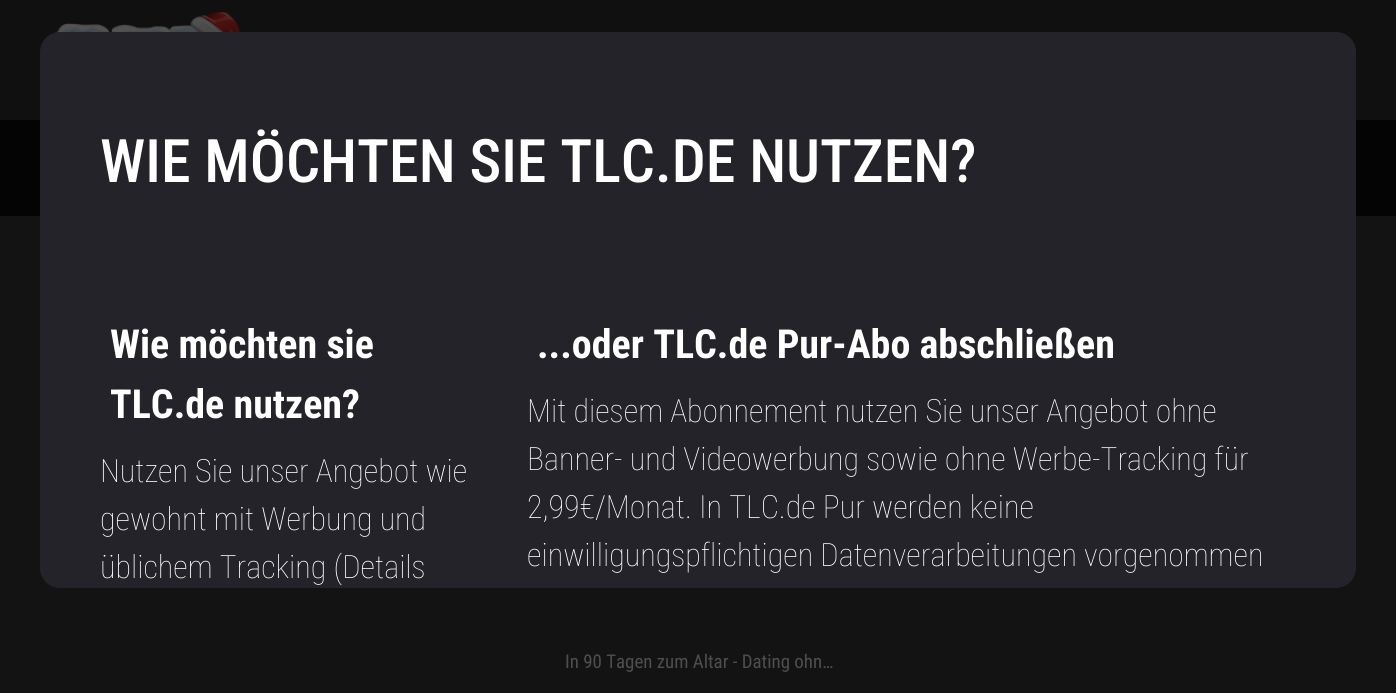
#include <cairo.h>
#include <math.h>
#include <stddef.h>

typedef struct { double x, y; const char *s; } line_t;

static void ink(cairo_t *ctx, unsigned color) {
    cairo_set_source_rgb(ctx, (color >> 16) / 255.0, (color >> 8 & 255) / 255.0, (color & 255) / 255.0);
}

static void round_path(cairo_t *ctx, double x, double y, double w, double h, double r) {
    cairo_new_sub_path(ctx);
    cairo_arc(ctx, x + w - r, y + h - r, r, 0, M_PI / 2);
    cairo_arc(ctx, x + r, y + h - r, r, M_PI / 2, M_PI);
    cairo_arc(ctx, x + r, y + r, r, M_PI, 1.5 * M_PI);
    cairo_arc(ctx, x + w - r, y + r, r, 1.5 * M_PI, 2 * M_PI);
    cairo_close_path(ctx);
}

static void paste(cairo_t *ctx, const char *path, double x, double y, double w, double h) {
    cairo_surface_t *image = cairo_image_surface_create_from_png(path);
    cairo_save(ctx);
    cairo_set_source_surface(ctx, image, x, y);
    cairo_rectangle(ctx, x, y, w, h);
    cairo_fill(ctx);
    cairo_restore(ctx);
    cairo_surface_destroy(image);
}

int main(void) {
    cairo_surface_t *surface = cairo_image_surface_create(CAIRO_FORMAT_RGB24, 1396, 693);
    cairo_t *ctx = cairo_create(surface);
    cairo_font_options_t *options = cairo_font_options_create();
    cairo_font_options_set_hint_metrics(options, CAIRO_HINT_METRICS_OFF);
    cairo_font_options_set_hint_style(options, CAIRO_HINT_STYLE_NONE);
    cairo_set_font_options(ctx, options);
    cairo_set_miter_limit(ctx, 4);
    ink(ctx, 0x101010);
    cairo_paint(ctx);
    paste(ctx, "media/1.png", 55, 11, 186, 22);
    ink(ctx, 0x131313);
    cairo_rectangle(ctx, 0, 216, 1396, 477);
    cairo_fill(ctx);
    ink(ctx, 0x040404);
    cairo_rectangle(ctx, 0, 120, 1396, 96);
    cairo_fill(ctx);
    ink(ctx, 0x232329);
    round_path(ctx, 40, 32, 1316, 556, 20);
    cairo_fill(ctx);
    cairo_select_font_face(ctx, "Roboto Condensed Medium", CAIRO_FONT_SLANT_NORMAL, CAIRO_FONT_WEIGHT_NORMAL);
    cairo_set_font_size(ctx, 60);
    ink(ctx, 0xFFFFFF);
    cairo_move_to(ctx, 100, 182);
    cairo_show_text(ctx, "WIE MÖCHTEN SIE TLC.DE NUTZEN?");
    cairo_select_font_face(ctx, "Roboto Condensed", CAIRO_FONT_SLANT_NORMAL, CAIRO_FONT_WEIGHT_BOLD);
    cairo_set_font_size(ctx, 40);
    cairo_move_to(ctx, 110, 358);
    cairo_show_text(ctx, "Wie möchten sie");
    cairo_move_to(ctx, 110, 418);
    cairo_show_text(ctx, "TLC.de nutzen?");
    cairo_select_font_face(ctx, "Roboto Condensed Thin", CAIRO_FONT_SLANT_NORMAL, CAIRO_FONT_WEIGHT_NORMAL);
    cairo_set_font_size(ctx, 32);
    {
        static const line_t items[] = {
            {100, 482, "Nutzen Sie unser Angebot wie"},
            {100, 530, "gewohnt mit Werbung und"},
            {100, 578, "üblichem Tracking (Details"},
        };
        for (size_t i = 0; i < sizeof items / sizeof *items; i++) {
            cairo_move_to(ctx, items[i].x, items[i].y);
            cairo_show_text(ctx, items[i].s);
        }
    }
    cairo_select_font_face(ctx, "Roboto Condensed", CAIRO_FONT_SLANT_NORMAL, CAIRO_FONT_WEIGHT_BOLD);
    cairo_set_font_size(ctx, 40);
    cairo_move_to(ctx, 537, 358);
    cairo_show_text(ctx, "...oder TLC.de Pur-Abo abschließen");
    cairo_select_font_face(ctx, "Roboto Condensed Thin", CAIRO_FONT_SLANT_NORMAL, CAIRO_FONT_WEIGHT_NORMAL);
    cairo_set_font_size(ctx, 32);
    {
        static const line_t items[] = {
            {527, 422, "Mit diesem Abonnement nutzen Sie unser Angebot ohne"},
            {527, 470, "Banner- und Videowerbung sowie ohne Werbe-Tracking für"},
            {527, 518, "2,99€/Monat. In TLC.de Pur werden keine"},
            {527, 566, "einwilligungspflichtigen Datenverarbeitungen vorgenommen"},
        };
        for (size_t i = 0; i < sizeof items / sizeof *items; i++) {
            cairo_move_to(ctx, items[i].x, items[i].y);
            cairo_show_text(ctx, items[i].s);
        }
    }
    cairo_select_font_face(ctx, "Roboto Condensed", CAIRO_FONT_SLANT_NORMAL, CAIRO_FONT_WEIGHT_NORMAL);
    cairo_set_font_size(ctx, 18.9);
    ink(ctx, 0x4E4E4E);
    cairo_move_to(ctx, 565, 668);
    cairo_show_text(ctx, "In 90 Tagen zum Altar - Dating ohn…");
    cairo_surface_write_to_png(surface, "image.png");
    cairo_font_options_destroy(options);
    cairo_destroy(ctx);
    cairo_surface_destroy(surface);
    return 0;
}
